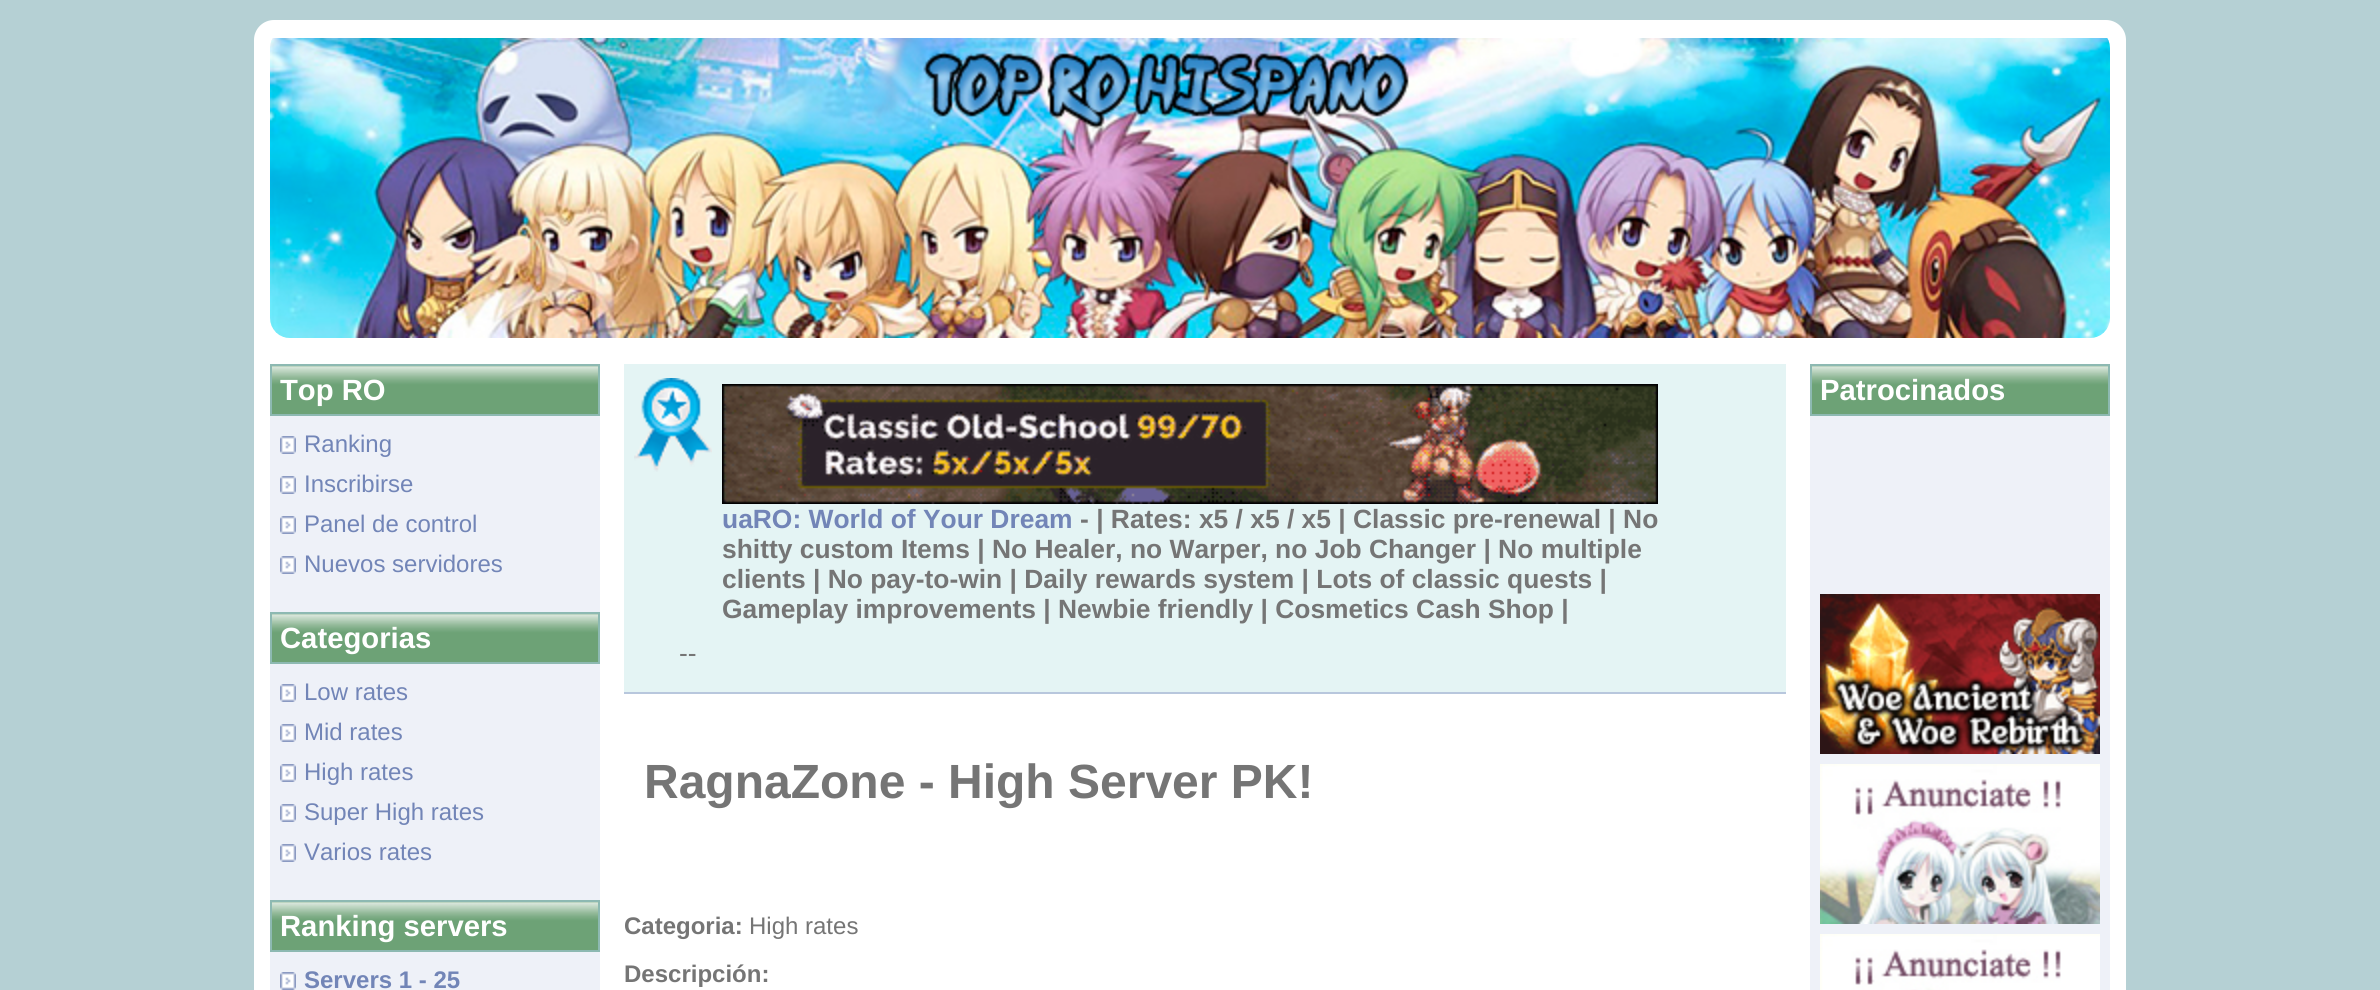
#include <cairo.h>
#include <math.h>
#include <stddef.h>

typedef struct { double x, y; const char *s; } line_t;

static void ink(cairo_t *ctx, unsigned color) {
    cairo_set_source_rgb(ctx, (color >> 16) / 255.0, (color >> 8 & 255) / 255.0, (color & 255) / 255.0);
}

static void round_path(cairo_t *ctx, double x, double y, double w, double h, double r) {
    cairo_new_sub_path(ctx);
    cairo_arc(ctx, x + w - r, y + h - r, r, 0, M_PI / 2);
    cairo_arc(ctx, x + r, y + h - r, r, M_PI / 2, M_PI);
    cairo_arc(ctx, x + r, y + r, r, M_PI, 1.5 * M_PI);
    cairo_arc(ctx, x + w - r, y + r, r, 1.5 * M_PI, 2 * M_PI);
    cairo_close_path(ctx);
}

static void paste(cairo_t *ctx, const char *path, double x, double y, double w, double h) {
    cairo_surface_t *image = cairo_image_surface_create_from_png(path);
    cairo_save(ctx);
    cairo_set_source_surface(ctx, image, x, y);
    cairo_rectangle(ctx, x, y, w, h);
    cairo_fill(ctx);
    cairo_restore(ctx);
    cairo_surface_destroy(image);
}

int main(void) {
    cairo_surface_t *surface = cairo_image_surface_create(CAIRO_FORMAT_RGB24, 2380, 990);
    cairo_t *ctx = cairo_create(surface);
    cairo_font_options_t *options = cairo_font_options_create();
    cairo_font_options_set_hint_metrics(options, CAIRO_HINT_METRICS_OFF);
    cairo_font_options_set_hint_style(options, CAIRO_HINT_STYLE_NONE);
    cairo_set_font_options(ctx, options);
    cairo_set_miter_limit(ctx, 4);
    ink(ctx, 0xB5D0D4);
    cairo_paint(ctx);
    ink(ctx, 0xFFFFFF);
    round_path(ctx, 255, 21, 1870, 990, 19);
    cairo_fill_preserve(ctx);
    cairo_stroke(ctx);
    paste(ctx, "media/1.png", 270, 38, 1840, 300);
    ink(ctx, 0xEEF1F8);
    cairo_rectangle(ctx, 270, 416, 330, 574);
    cairo_fill(ctx);
    paste(ctx, "media/2.png", 272, 366, 326, 48);
    cairo_rectangle(ctx, 271, 365, 328, 50);
    ink(ctx, 0x8DB9B2);
    cairo_stroke(ctx);
    cairo_select_font_face(ctx, "Liberation Sans", CAIRO_FONT_SLANT_NORMAL, CAIRO_FONT_WEIGHT_BOLD);
    cairo_set_font_size(ctx, 29.25);
    ink(ctx, 0xFFFFFF);
    cairo_move_to(ctx, 280, 400);
    cairo_show_text(ctx, "Top RO");
    paste(ctx, "media/3.png", 280, 436, 16, 18);
    cairo_select_font_face(ctx, "Liberation Sans", CAIRO_FONT_SLANT_NORMAL, CAIRO_FONT_WEIGHT_NORMAL);
    cairo_set_font_size(ctx, 24);
    ink(ctx, 0x7285B7);
    cairo_move_to(ctx, 304, 452);
    cairo_show_text(ctx, "Ranking");
    paste(ctx, "media/3.png", 280, 476, 16, 18);
    cairo_move_to(ctx, 304, 492);
    cairo_show_text(ctx, "Inscribirse");
    paste(ctx, "media/3.png", 280, 516, 16, 18);
    cairo_move_to(ctx, 304, 532);
    cairo_show_text(ctx, "Panel de control");
    paste(ctx, "media/3.png", 280, 556, 16, 18);
    cairo_move_to(ctx, 304, 572);
    cairo_show_text(ctx, "Nuevos servidores");
    paste(ctx, "media/2.png", 272, 614, 326, 48);
    cairo_rectangle(ctx, 271, 613, 328, 50);
    ink(ctx, 0x8DB9B2);
    cairo_stroke(ctx);
    cairo_select_font_face(ctx, "Liberation Sans", CAIRO_FONT_SLANT_NORMAL, CAIRO_FONT_WEIGHT_BOLD);
    cairo_set_font_size(ctx, 29.25);
    ink(ctx, 0xFFFFFF);
    cairo_move_to(ctx, 280, 648);
    cairo_show_text(ctx, "Categorias");
    paste(ctx, "media/3.png", 280, 684, 16, 18);
    cairo_select_font_face(ctx, "Liberation Sans", CAIRO_FONT_SLANT_NORMAL, CAIRO_FONT_WEIGHT_NORMAL);
    cairo_set_font_size(ctx, 24);
    ink(ctx, 0x7285B7);
    cairo_move_to(ctx, 304, 700);
    cairo_show_text(ctx, "Low rates");
    paste(ctx, "media/3.png", 280, 724, 16, 18);
    cairo_move_to(ctx, 304, 740);
    cairo_show_text(ctx, "Mid rates");
    paste(ctx, "media/3.png", 280, 764, 16, 18);
    cairo_move_to(ctx, 304, 780);
    cairo_show_text(ctx, "High rates");
    paste(ctx, "media/3.png", 280, 804, 16, 18);
    cairo_move_to(ctx, 304, 820);
    cairo_show_text(ctx, "Super High rates");
    paste(ctx, "media/3.png", 280, 844, 16, 18);
    cairo_move_to(ctx, 304, 860);
    cairo_show_text(ctx, "Varios rates");
    paste(ctx, "media/4.png", 272, 902, 326, 48);
    cairo_rectangle(ctx, 271, 901, 328, 50);
    ink(ctx, 0x8DB9B2);
    cairo_stroke(ctx);
    cairo_select_font_face(ctx, "Liberation Sans", CAIRO_FONT_SLANT_NORMAL, CAIRO_FONT_WEIGHT_BOLD);
    cairo_set_font_size(ctx, 29.25);
    ink(ctx, 0xFFFFFF);
    cairo_move_to(ctx, 280, 936);
    cairo_show_text(ctx, "Ranking servers");
    paste(ctx, "media/3.png", 280, 972, 16, 18);
    cairo_set_font_size(ctx, 24);
    ink(ctx, 0x7285B7);
    cairo_move_to(ctx, 304, 988);
    cairo_show_text(ctx, "Servers 1 - 25");
    ink(ctx, 0xE4F4F4);
    cairo_rectangle(ctx, 624, 364, 1162, 328);
    cairo_fill(ctx);
    ink(ctx, 0xB8C7DD);
    cairo_rectangle(ctx, 624, 692, 1162, 2);
    cairo_fill(ctx);
    paste(ctx, "media/5.png", 634, 378, 78, 94);
    paste(ctx, "media/6.png", 722, 384, 936, 120);
    cairo_set_font_size(ctx, 26.4);
    ink(ctx, 0x7285B7);
    cairo_move_to(ctx, 722, 528);
    cairo_show_text(ctx, "uaRO: World of Your Dream");
    ink(ctx, 0x757575);
    {
        static const line_t items[] = {
            {1080, 528, "- | Rates: x5 / x5 / x5 | Classic pre-renewal | No"},
            {722, 558, "shitty custom Items | No Healer, no Warper, no Job Changer | No multiple"},
            {722, 588, "clients | No pay-to-win | Daily rewards system | Lots of classic quests |"},
            {722, 618, "Gameplay improvements | Newbie friendly | Cosmetics Cash Shop |"},
        };
        for (size_t i = 0; i < sizeof items / sizeof *items; i++) {
            cairo_move_to(ctx, items[i].x, items[i].y);
            cairo_show_text(ctx, items[i].s);
        }
    }
    cairo_select_font_face(ctx, "Liberation Sans", CAIRO_FONT_SLANT_NORMAL, CAIRO_FONT_WEIGHT_NORMAL);
    cairo_move_to(ctx, 679, 662);
    cairo_show_text(ctx, "--");
    cairo_select_font_face(ctx, "Liberation Sans", CAIRO_FONT_SLANT_NORMAL, CAIRO_FONT_WEIGHT_BOLD);
    cairo_set_font_size(ctx, 48);
    cairo_move_to(ctx, 644, 798);
    cairo_show_text(ctx, "RagnaZone - High Server PK!");
    cairo_set_font_size(ctx, 24);
    cairo_move_to(ctx, 624, 934);
    cairo_show_text(ctx, "Categoria:");
    cairo_select_font_face(ctx, "Liberation Sans", CAIRO_FONT_SLANT_NORMAL, CAIRO_FONT_WEIGHT_NORMAL);
    cairo_move_to(ctx, 749, 934);
    cairo_show_text(ctx, "High rates");
    cairo_select_font_face(ctx, "Liberation Sans", CAIRO_FONT_SLANT_NORMAL, CAIRO_FONT_WEIGHT_BOLD);
    cairo_move_to(ctx, 624, 982);
    cairo_show_text(ctx, "Descripción:");
    ink(ctx, 0xEEF1F8);
    cairo_rectangle(ctx, 1810, 416, 300, 574);
    cairo_fill(ctx);
    paste(ctx, "media/7.png", 1812, 366, 296, 48);
    cairo_rectangle(ctx, 1811, 365, 298, 50);
    ink(ctx, 0x8DB9B2);
    cairo_stroke(ctx);
    cairo_set_font_size(ctx, 29.25);
    ink(ctx, 0xFFFFFF);
    cairo_move_to(ctx, 1820, 400);
    cairo_show_text(ctx, "Patrocinados");
    paste(ctx, "media/8.png", 1820, 594, 280, 160);
    paste(ctx, "media/9.png", 1820, 764, 280, 160);
    paste(ctx, "media/10.png", 1820, 934, 280, 56);
    cairo_surface_write_to_png(surface, "image.png");
    cairo_font_options_destroy(options);
    cairo_destroy(ctx);
    cairo_surface_destroy(surface);
    return 0;
}
